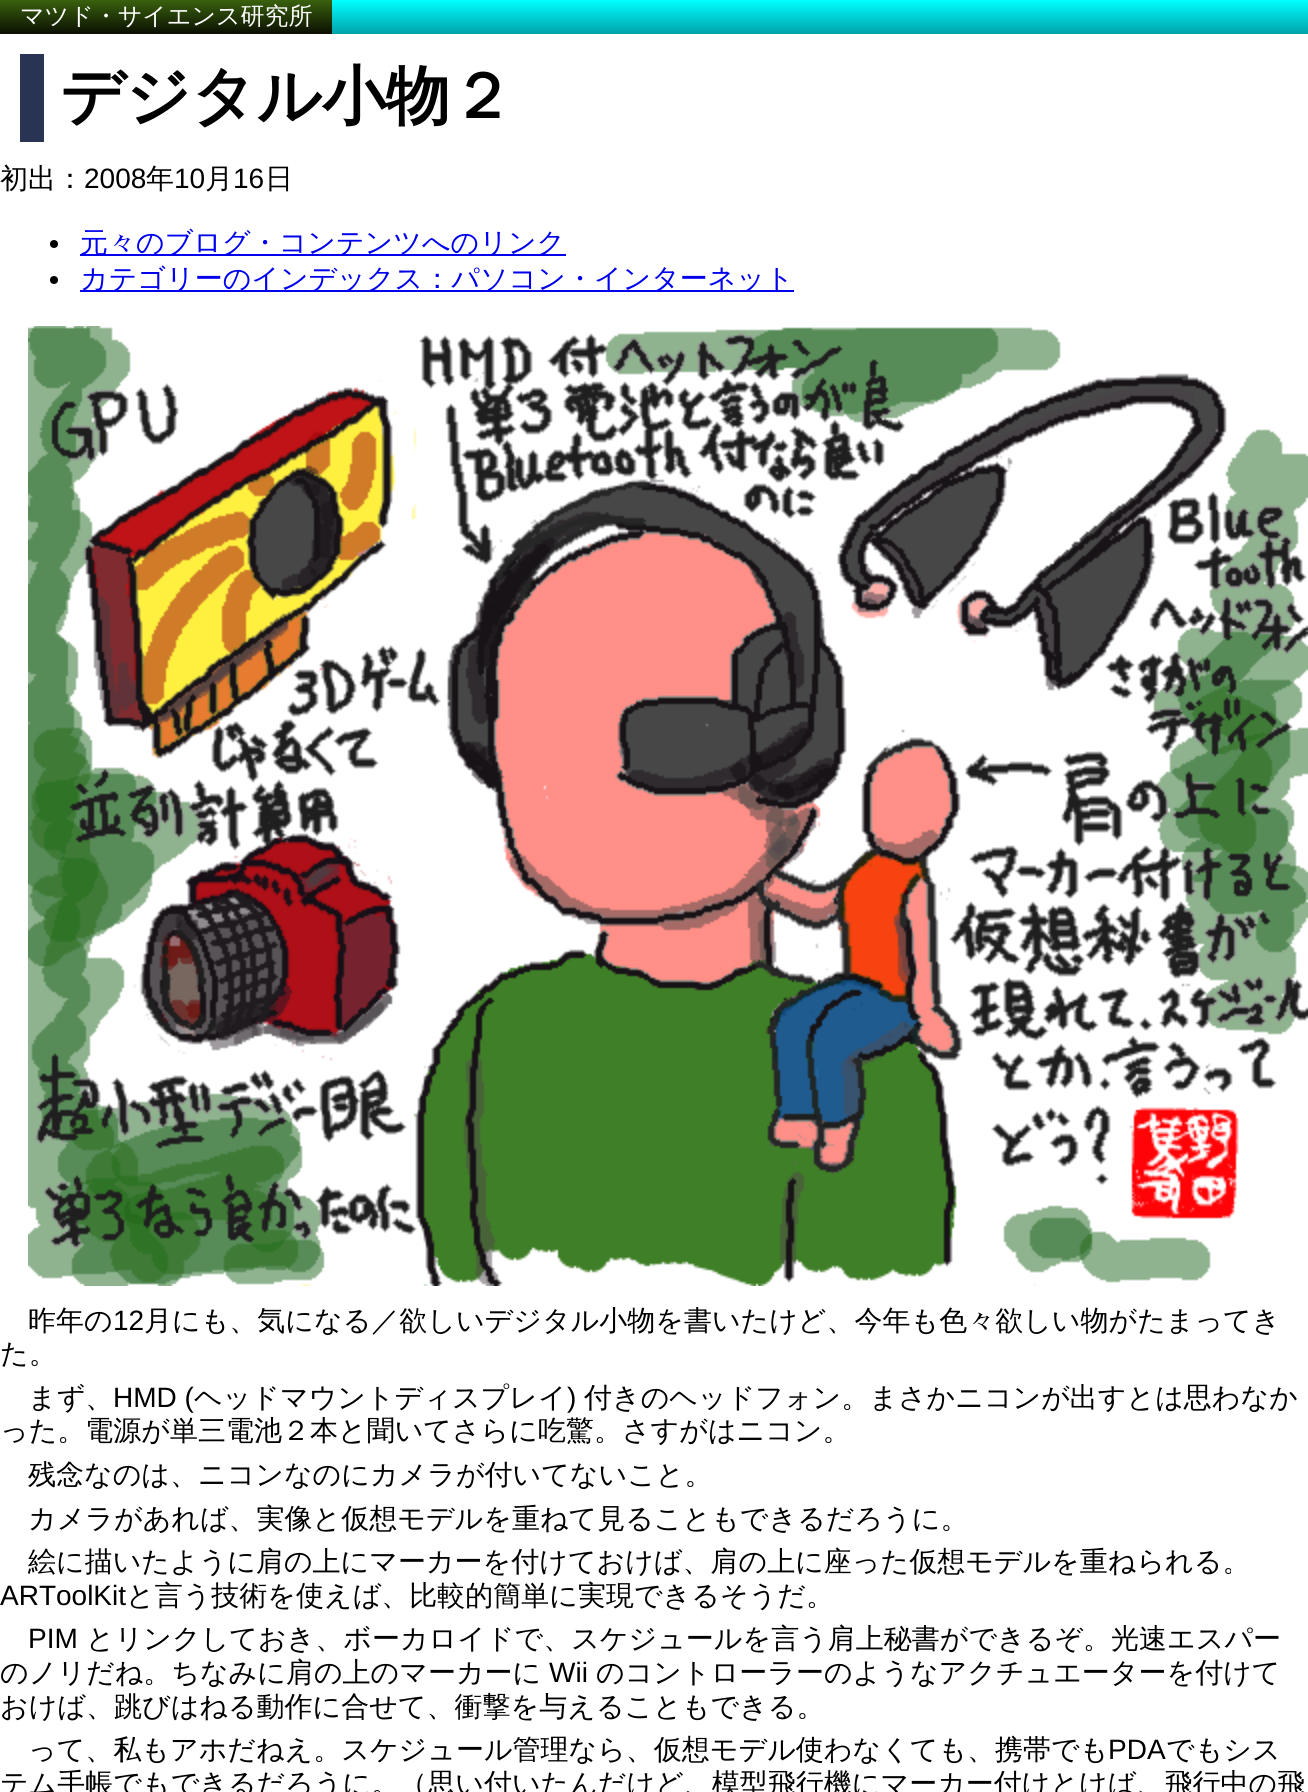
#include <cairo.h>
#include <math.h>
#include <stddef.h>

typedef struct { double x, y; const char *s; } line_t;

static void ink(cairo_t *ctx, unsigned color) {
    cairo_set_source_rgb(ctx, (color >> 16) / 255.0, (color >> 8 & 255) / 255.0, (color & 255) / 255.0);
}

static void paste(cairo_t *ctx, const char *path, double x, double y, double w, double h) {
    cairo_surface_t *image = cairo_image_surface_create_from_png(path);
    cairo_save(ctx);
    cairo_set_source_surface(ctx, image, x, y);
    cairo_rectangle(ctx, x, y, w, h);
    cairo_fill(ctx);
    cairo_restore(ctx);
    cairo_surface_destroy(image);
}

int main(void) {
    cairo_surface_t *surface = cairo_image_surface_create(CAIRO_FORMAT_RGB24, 1308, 1792);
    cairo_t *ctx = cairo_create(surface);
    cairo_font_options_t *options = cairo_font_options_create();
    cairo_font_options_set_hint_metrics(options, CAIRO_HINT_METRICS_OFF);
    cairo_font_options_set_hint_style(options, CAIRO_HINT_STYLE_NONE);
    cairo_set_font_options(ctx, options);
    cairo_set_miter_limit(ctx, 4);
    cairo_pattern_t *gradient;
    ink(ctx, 0xFFFFFF);
    cairo_paint(ctx);
    gradient = cairo_pattern_create_linear(654, 0, 654, 34);
    cairo_pattern_add_color_stop_rgba(gradient, 0, 0, 1, 1, 1);
    cairo_pattern_add_color_stop_rgba(gradient, 1, 0, 0.635, 0.667, 1);
    cairo_set_source(ctx, gradient);
    cairo_pattern_destroy(gradient);
    cairo_rectangle(ctx, 332, 0, 976, 34);
    cairo_fill(ctx);
    gradient = cairo_pattern_create_linear(166, 0, 166, 34);
    cairo_pattern_add_color_stop_rgba(gradient, 0, 0.224, 0.38, 0.051, 1);
    cairo_pattern_add_color_stop_rgba(gradient, 1, 0.043, 0.059, 0.008, 1);
    cairo_set_source(ctx, gradient);
    cairo_pattern_destroy(gradient);
    cairo_rectangle(ctx, 0, 0, 332, 34);
    cairo_fill(ctx);
    cairo_select_font_face(ctx, "WenQuanYi Zen Hei Medium", CAIRO_FONT_SLANT_NORMAL, CAIRO_FONT_WEIGHT_NORMAL);
    cairo_set_font_size(ctx, 24);
    ink(ctx, 0xFFFFFF);
    cairo_move_to(ctx, 20, 24);
    cairo_show_text(ctx, "マツド・サイエンス研究所");
    ink(ctx, 0x293354);
    cairo_rectangle(ctx, 20, 54, 24, 88);
    cairo_fill(ctx);
    cairo_select_font_face(ctx, "WenQuanYi Zen Hei", CAIRO_FONT_SLANT_NORMAL, CAIRO_FONT_WEIGHT_BOLD);
    cairo_set_font_size(ctx, 64);
    ink(ctx, 0x000000);
    cairo_move_to(ctx, 60, 118);
    cairo_show_text(ctx, "デジタル小物２");
    cairo_select_font_face(ctx, "WenQuanYi Zen Hei Medium", CAIRO_FONT_SLANT_NORMAL, CAIRO_FONT_WEIGHT_NORMAL);
    cairo_set_font_size(ctx, 28);
    cairo_move_to(ctx, 0, 188);
    cairo_show_text(ctx, "初出：");
    cairo_select_font_face(ctx, "Liberation Sans", CAIRO_FONT_SLANT_NORMAL, CAIRO_FONT_WEIGHT_NORMAL);
    cairo_move_to(ctx, 84, 188);
    cairo_show_text(ctx, "2008");
    cairo_select_font_face(ctx, "WenQuanYi Zen Hei Medium", CAIRO_FONT_SLANT_NORMAL, CAIRO_FONT_WEIGHT_NORMAL);
    cairo_move_to(ctx, 146, 188);
    cairo_show_text(ctx, "年");
    cairo_select_font_face(ctx, "Liberation Sans", CAIRO_FONT_SLANT_NORMAL, CAIRO_FONT_WEIGHT_NORMAL);
    cairo_move_to(ctx, 174, 188);
    cairo_show_text(ctx, "10");
    cairo_select_font_face(ctx, "WenQuanYi Zen Hei Medium", CAIRO_FONT_SLANT_NORMAL, CAIRO_FONT_WEIGHT_NORMAL);
    cairo_move_to(ctx, 205, 188);
    cairo_show_text(ctx, "月");
    cairo_select_font_face(ctx, "Liberation Sans", CAIRO_FONT_SLANT_NORMAL, CAIRO_FONT_WEIGHT_NORMAL);
    cairo_move_to(ctx, 233, 188);
    cairo_show_text(ctx, "16");
    cairo_select_font_face(ctx, "WenQuanYi Zen Hei Medium", CAIRO_FONT_SLANT_NORMAL, CAIRO_FONT_WEIGHT_NORMAL);
    cairo_move_to(ctx, 265, 188);
    cairo_show_text(ctx, "日");
    cairo_new_path(ctx);
    cairo_arc(ctx, 54, 244, 4, 0, 2 * M_PI);
    cairo_fill(ctx);
    ink(ctx, 0x0000EE);
    cairo_rectangle(ctx, 80, 254, 486, 2);
    cairo_fill(ctx);
    cairo_move_to(ctx, 80, 252);
    cairo_show_text(ctx, "元々のブログ・コンテンツへのリンク");
    ink(ctx, 0x000000);
    cairo_new_path(ctx);
    cairo_arc(ctx, 54, 280, 4, 0, 2 * M_PI);
    cairo_fill(ctx);
    ink(ctx, 0x0000EE);
    cairo_rectangle(ctx, 80, 290, 714, 2);
    cairo_fill(ctx);
    cairo_move_to(ctx, 80, 288);
    cairo_show_text(ctx, "カテゴリーのインデックス：パソコン・インターネット");
    paste(ctx, "media/1.png", 28, 326, 1280, 960);
    ink(ctx, 0x000000);
    cairo_move_to(ctx, 28, 1330);
    cairo_show_text(ctx, "昨年の");
    cairo_select_font_face(ctx, "Liberation Sans", CAIRO_FONT_SLANT_NORMAL, CAIRO_FONT_WEIGHT_NORMAL);
    cairo_move_to(ctx, 113, 1330);
    cairo_show_text(ctx, "12");
    cairo_select_font_face(ctx, "WenQuanYi Zen Hei Medium", CAIRO_FONT_SLANT_NORMAL, CAIRO_FONT_WEIGHT_NORMAL);
    {
        static const line_t items[] = {
            {144, 1330, "月にも、気になる／欲しいデジタル小物を書いたけど、今年も色々欲しい物がたまってき"},
            {0, 1363, "た。"},
            {28, 1407, "まず、"},
        };
        for (size_t i = 0; i < sizeof items / sizeof *items; i++) {
            cairo_move_to(ctx, items[i].x, items[i].y);
            cairo_show_text(ctx, items[i].s);
        }
    }
    cairo_select_font_face(ctx, "Liberation Sans", CAIRO_FONT_SLANT_NORMAL, CAIRO_FONT_WEIGHT_NORMAL);
    cairo_move_to(ctx, 113, 1407);
    cairo_show_text(ctx, "HMD (");
    cairo_select_font_face(ctx, "WenQuanYi Zen Hei Medium", CAIRO_FONT_SLANT_NORMAL, CAIRO_FONT_WEIGHT_NORMAL);
    cairo_move_to(ctx, 194, 1407);
    cairo_show_text(ctx, "ヘッドマウントディスプレイ");
    cairo_select_font_face(ctx, "Liberation Sans", CAIRO_FONT_SLANT_NORMAL, CAIRO_FONT_WEIGHT_NORMAL);
    cairo_move_to(ctx, 567, 1407);
    cairo_show_text(ctx, ")");
    cairo_select_font_face(ctx, "WenQuanYi Zen Hei Medium", CAIRO_FONT_SLANT_NORMAL, CAIRO_FONT_WEIGHT_NORMAL);
    {
        static const line_t items[] = {
            {584, 1407, "付きのヘッドフォン。まさかニコンが出すとは思わなか"},
            {0, 1440, "った。電源が単三電池２本と聞いてさらに吃驚。さすがはニコン。"},
            {28, 1484, "残念なのは、ニコンなのにカメラが付いてないこと。"},
            {28, 1528, "カメラがあれば、実像と仮想モデルを重ねて見ることもできるだろうに。"},
            {28, 1571, "絵に描いたように肩の上にマーカーを付けておけば、肩の上に座った仮想モデルを重ねられる。"},
        };
        for (size_t i = 0; i < sizeof items / sizeof *items; i++) {
            cairo_move_to(ctx, items[i].x, items[i].y);
            cairo_show_text(ctx, items[i].s);
        }
    }
    cairo_select_font_face(ctx, "Liberation Sans", CAIRO_FONT_SLANT_NORMAL, CAIRO_FONT_WEIGHT_NORMAL);
    cairo_move_to(ctx, 0, 1605);
    cairo_show_text(ctx, "ARToolKit");
    cairo_select_font_face(ctx, "WenQuanYi Zen Hei Medium", CAIRO_FONT_SLANT_NORMAL, CAIRO_FONT_WEIGHT_NORMAL);
    cairo_move_to(ctx, 126, 1605);
    cairo_show_text(ctx, "と言う技術を使えば、比較的簡単に実現できるそうだ。");
    cairo_select_font_face(ctx, "Liberation Sans", CAIRO_FONT_SLANT_NORMAL, CAIRO_FONT_WEIGHT_NORMAL);
    cairo_move_to(ctx, 28, 1648);
    cairo_show_text(ctx, "PIM");
    cairo_select_font_face(ctx, "WenQuanYi Zen Hei Medium", CAIRO_FONT_SLANT_NORMAL, CAIRO_FONT_WEIGHT_NORMAL);
    cairo_move_to(ctx, 86, 1648);
    cairo_show_text(ctx, "とリンクしておき、ボーカロイドで、スケジュールを言う肩上秘書ができるぞ。光速エスパー");
    cairo_move_to(ctx, 0, 1682);
    cairo_show_text(ctx, "のノリだね。ちなみに肩の上のマーカーに");
    cairo_select_font_face(ctx, "Liberation Sans", CAIRO_FONT_SLANT_NORMAL, CAIRO_FONT_WEIGHT_NORMAL);
    cairo_move_to(ctx, 549, 1682);
    cairo_show_text(ctx, "Wii");
    cairo_select_font_face(ctx, "WenQuanYi Zen Hei Medium", CAIRO_FONT_SLANT_NORMAL, CAIRO_FONT_WEIGHT_NORMAL);
    {
        static const line_t items[] = {
            {596, 1682, "のコントローラーのようなアクチュエーターを付けて"},
            {0, 1716, "おけば、跳びはねる動作に合せて、衝撃を与えることもできる。"},
            {28, 1759, "って、私もアホだねえ。スケジュール管理なら、仮想モデル使わなくても、携帯でも"},
        };
        for (size_t i = 0; i < sizeof items / sizeof *items; i++) {
            cairo_move_to(ctx, items[i].x, items[i].y);
            cairo_show_text(ctx, items[i].s);
        }
    }
    cairo_select_font_face(ctx, "Liberation Sans", CAIRO_FONT_SLANT_NORMAL, CAIRO_FONT_WEIGHT_NORMAL);
    cairo_move_to(ctx, 1108, 1759);
    cairo_show_text(ctx, "PDA");
    cairo_select_font_face(ctx, "WenQuanYi Zen Hei Medium", CAIRO_FONT_SLANT_NORMAL, CAIRO_FONT_WEIGHT_NORMAL);
    cairo_move_to(ctx, 1166, 1759);
    cairo_show_text(ctx, "でもシス");
    cairo_move_to(ctx, 0, 1793);
    cairo_show_text(ctx, "テム手帳でもできるだろうに。（思い付いたんだけど、模型飛行機にマーカー付けとけば、飛行中の飛");
    cairo_surface_write_to_png(surface, "image.png");
    cairo_font_options_destroy(options);
    cairo_destroy(ctx);
    cairo_surface_destroy(surface);
    return 0;
}
